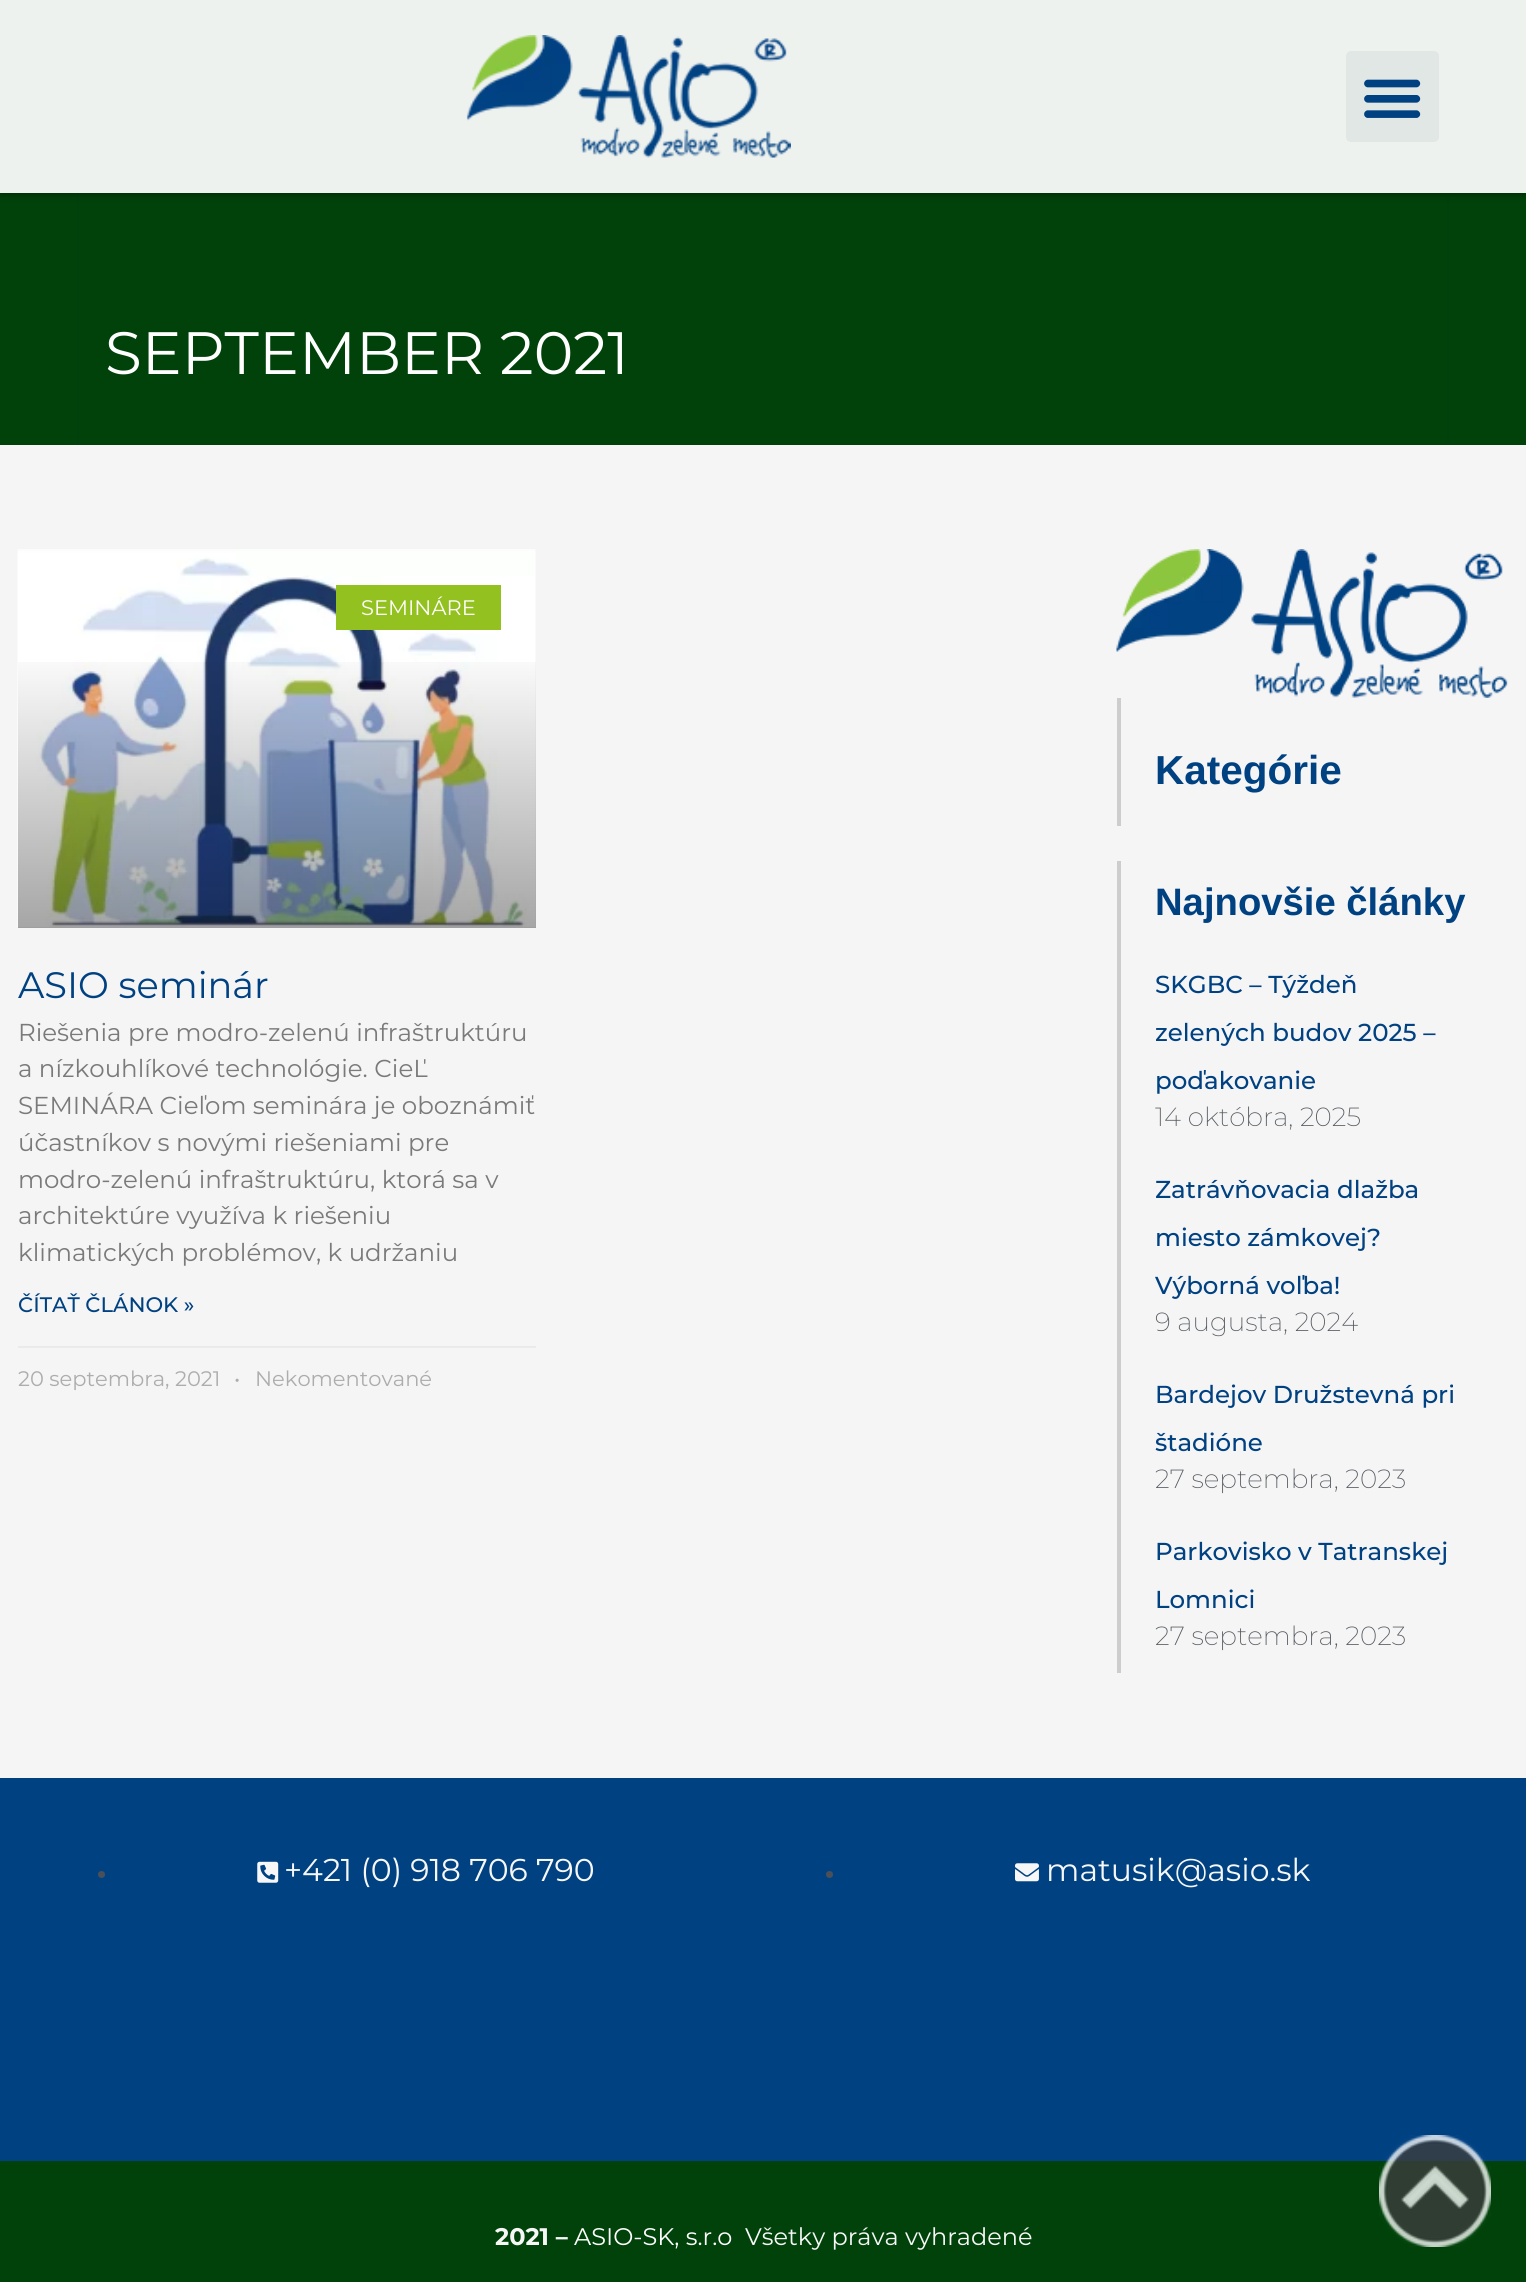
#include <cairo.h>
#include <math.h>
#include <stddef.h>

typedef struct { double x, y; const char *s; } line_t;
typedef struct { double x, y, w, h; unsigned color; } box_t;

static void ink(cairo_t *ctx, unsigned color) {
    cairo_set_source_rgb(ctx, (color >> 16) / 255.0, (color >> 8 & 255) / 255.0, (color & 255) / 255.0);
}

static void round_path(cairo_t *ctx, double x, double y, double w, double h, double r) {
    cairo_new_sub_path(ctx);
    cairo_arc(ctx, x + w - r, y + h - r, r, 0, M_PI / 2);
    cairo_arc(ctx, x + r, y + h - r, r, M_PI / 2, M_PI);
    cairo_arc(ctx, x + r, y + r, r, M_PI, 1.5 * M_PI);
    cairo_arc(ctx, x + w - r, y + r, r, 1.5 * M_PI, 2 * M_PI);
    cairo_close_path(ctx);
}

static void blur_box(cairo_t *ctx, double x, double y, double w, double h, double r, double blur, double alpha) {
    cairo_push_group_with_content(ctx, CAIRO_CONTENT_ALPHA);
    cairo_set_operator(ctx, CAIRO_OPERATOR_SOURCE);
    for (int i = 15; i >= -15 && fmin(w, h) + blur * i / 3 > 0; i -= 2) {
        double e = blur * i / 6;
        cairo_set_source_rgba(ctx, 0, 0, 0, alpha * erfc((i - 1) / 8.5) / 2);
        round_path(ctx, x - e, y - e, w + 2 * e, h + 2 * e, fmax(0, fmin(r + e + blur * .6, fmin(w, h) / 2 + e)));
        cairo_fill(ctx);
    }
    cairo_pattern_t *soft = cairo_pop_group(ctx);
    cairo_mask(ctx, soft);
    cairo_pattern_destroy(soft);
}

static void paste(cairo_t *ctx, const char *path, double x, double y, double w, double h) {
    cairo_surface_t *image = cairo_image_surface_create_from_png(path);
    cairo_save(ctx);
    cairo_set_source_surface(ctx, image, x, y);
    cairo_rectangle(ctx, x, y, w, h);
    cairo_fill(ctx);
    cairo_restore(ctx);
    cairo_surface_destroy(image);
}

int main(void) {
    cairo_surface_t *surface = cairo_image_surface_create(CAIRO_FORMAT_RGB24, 1526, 2282);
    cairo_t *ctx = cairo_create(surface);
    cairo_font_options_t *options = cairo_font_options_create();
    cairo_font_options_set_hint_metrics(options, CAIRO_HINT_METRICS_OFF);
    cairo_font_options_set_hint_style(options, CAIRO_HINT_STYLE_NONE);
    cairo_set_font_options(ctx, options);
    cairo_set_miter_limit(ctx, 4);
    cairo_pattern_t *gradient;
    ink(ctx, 0xF5F5F5);
    cairo_paint(ctx);
    {
        static const box_t items[] = {
            {0, 0, 1526, 445, 0x004209},
            {1447, 0, 2, 445, 0x00400C},
            {77, 0, 2, 445, 0x00400C},
        };
        for (size_t i = 0; i < sizeof items / sizeof *items; i++) {
            ink(ctx, items[i].color);
            cairo_rectangle(ctx, items[i].x, items[i].y, items[i].w, items[i].h);
            cairo_fill(ctx);
        }
    }
    cairo_save(ctx);
    cairo_set_fill_rule(ctx, CAIRO_FILL_RULE_EVEN_ODD);
    cairo_new_path(ctx);
    cairo_move_to(ctx, 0, 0);
    cairo_line_to(ctx, 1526, 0);
    cairo_line_to(ctx, 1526, 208);
    cairo_line_to(ctx, 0, 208);
    cairo_close_path(ctx);
    cairo_move_to(ctx, 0, 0);
    cairo_line_to(ctx, 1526, 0);
    cairo_line_to(ctx, 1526, 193);
    cairo_line_to(ctx, 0, 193);
    cairo_close_path(ctx);
    cairo_clip(ctx);
    ink(ctx, 0x000000);
    blur_box(ctx, 0, 0, 1526, 193, 0, 4.5, 0.5);
    cairo_restore(ctx);
    cairo_set_source_rgba(ctx, 1, 1, 1, 0.93);
    cairo_rectangle(ctx, 0, 0, 1526, 193);
    cairo_fill(ctx);
    paste(ctx, "media/1.png", 466, 35, 325, 123);
    ink(ctx, 0xE1E7E5);
    round_path(ctx, 1346, 51, 93, 91, 5);
    cairo_fill(ctx);
    paste(ctx, "media/2.png", 1364, 79, 57, 39);
    cairo_select_font_face(ctx, "Montserrat", CAIRO_FONT_SLANT_NORMAL, CAIRO_FONT_WEIGHT_NORMAL);
    cairo_set_font_size(ctx, 59.75);
    ink(ctx, 0xFFFFFF);
    cairo_move_to(ctx, 105, 374);
    cairo_show_text(ctx, "SEPTEMBER 2021");
    paste(ctx, "media/3.png", 17, 549, 519, 378);
    gradient = cairo_pattern_create_linear(277, 928, 277, 550);
    cairo_pattern_add_color_stop_rgba(gradient, 0, 0, 0, 0, 0.35);
    cairo_pattern_add_color_stop_rgba(gradient, 0.75, 0, 0, 0, 0);
    cairo_set_source(ctx, gradient);
    cairo_pattern_destroy(gradient);
    cairo_rectangle(ctx, 18, 662, 518, 266);
    cairo_fill(ctx);
    ink(ctx, 0x93C120);
    cairo_rectangle(ctx, 336, 585, 165, 45);
    cairo_fill(ctx);
    cairo_select_font_face(ctx, "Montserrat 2", CAIRO_FONT_SLANT_NORMAL, CAIRO_FONT_WEIGHT_NORMAL);
    cairo_set_font_size(ctx, 21);
    ink(ctx, 0xFFFFFF);
    cairo_move_to(ctx, 361, 615);
    cairo_show_text(ctx, "SEMINÁRE");
    cairo_set_font_size(ctx, 36.75);
    ink(ctx, 0x004182);
    cairo_move_to(ctx, 18, 998);
    cairo_show_text(ctx, "ASIO seminár");
    cairo_set_font_size(ctx, 24.5);
    ink(ctx, 0x7A7A7A);
    {
        static const line_t items[] = {
            {18, 1041, "Riešenia pre modro-zelenú infraštruktúru"},
            {18, 1077, "a nízkouhlíkové technológie. CieĽ"},
            {18, 1114, "SEMINÁRA Cieľom seminára je oboznámiť"},
            {18, 1151, "účastníkov s novými riešeniami pre"},
            {18, 1188, "modro-zelenú infraštruktúru, ktorá sa v"},
            {18, 1224, "architektúre využíva k riešeniu"},
            {18, 1261, "klimatických problémov, k udržaniu"},
        };
        for (size_t i = 0; i < sizeof items / sizeof *items; i++) {
            cairo_move_to(ctx, items[i].x, items[i].y);
            cairo_show_text(ctx, items[i].s);
        }
    }
    cairo_select_font_face(ctx, "Montserrat Medium", CAIRO_FONT_SLANT_NORMAL, CAIRO_FONT_WEIGHT_NORMAL);
    cairo_set_font_size(ctx, 21);
    ink(ctx, 0x004182);
    cairo_move_to(ctx, 18, 1312);
    cairo_show_text(ctx, "ČÍTAŤ ČLÁNOK »");
    ink(ctx, 0xEAEAEA);
    cairo_rectangle(ctx, 18, 1346, 518, 2);
    cairo_fill(ctx);
    cairo_select_font_face(ctx, "Montserrat 2", CAIRO_FONT_SLANT_NORMAL, CAIRO_FONT_WEIGHT_NORMAL);
    ink(ctx, 0xADADAD);
    {
        static const line_t items[] = {
            {18, 1386, "20 septembra, 2021"},
            {234, 1386, "•"},
            {255, 1386, "Nekomentované"},
        };
        for (size_t i = 0; i < sizeof items / sizeof *items; i++) {
            cairo_move_to(ctx, items[i].x, items[i].y);
            cairo_show_text(ctx, items[i].s);
        }
    }
    paste(ctx, "media/4.png", 1116, 549, 392, 149);
    ink(ctx, 0xCDCDCD);
    cairo_rectangle(ctx, 1117, 698, 4, 128);
    cairo_fill(ctx);
    cairo_select_font_face(ctx, "Liberation Sans", CAIRO_FONT_SLANT_NORMAL, CAIRO_FONT_WEIGHT_BOLD);
    cairo_set_font_size(ctx, 40.5);
    ink(ctx, 0x004182);
    cairo_move_to(ctx, 1155, 784);
    cairo_show_text(ctx, "Kategórie");
    ink(ctx, 0xCDCDCD);
    cairo_rectangle(ctx, 1117, 861, 4, 812);
    cairo_fill(ctx);
    cairo_set_font_size(ctx, 38.25);
    ink(ctx, 0x004182);
    cairo_move_to(ctx, 1155, 915);
    cairo_show_text(ctx, "Najnovšie články");
    cairo_select_font_face(ctx, "Montserrat 2 Medium", CAIRO_FONT_SLANT_NORMAL, CAIRO_FONT_WEIGHT_NORMAL);
    cairo_set_font_size(ctx, 24.5);
    {
        static const line_t items[] = {
            {1155, 993, "SKGBC – Týždeň"},
            {1155, 1041, "zelených budov 2025 –"},
            {1155, 1089, "poďakovanie"},
        };
        for (size_t i = 0; i < sizeof items / sizeof *items; i++) {
            cairo_move_to(ctx, items[i].x, items[i].y);
            cairo_show_text(ctx, items[i].s);
        }
    }
    cairo_select_font_face(ctx, "Montserrat ExtraLight", CAIRO_FONT_SLANT_NORMAL, CAIRO_FONT_WEIGHT_NORMAL);
    cairo_set_font_size(ctx, 26.25);
    ink(ctx, 0x54595F);
    cairo_move_to(ctx, 1155, 1126);
    cairo_show_text(ctx, "14 októbra, 2025");
    cairo_select_font_face(ctx, "Montserrat 2 Medium", CAIRO_FONT_SLANT_NORMAL, CAIRO_FONT_WEIGHT_NORMAL);
    cairo_set_font_size(ctx, 24.5);
    ink(ctx, 0x004182);
    {
        static const line_t items[] = {
            {1155, 1198, "Zatrávňovacia dlažba"},
            {1155, 1246, "miesto zámkovej?"},
            {1155, 1294, "Výborná voľba!"},
        };
        for (size_t i = 0; i < sizeof items / sizeof *items; i++) {
            cairo_move_to(ctx, items[i].x, items[i].y);
            cairo_show_text(ctx, items[i].s);
        }
    }
    cairo_select_font_face(ctx, "Montserrat ExtraLight", CAIRO_FONT_SLANT_NORMAL, CAIRO_FONT_WEIGHT_NORMAL);
    cairo_set_font_size(ctx, 26.25);
    ink(ctx, 0x54595F);
    cairo_move_to(ctx, 1155, 1331);
    cairo_show_text(ctx, "9 augusta, 2024");
    cairo_select_font_face(ctx, "Montserrat 2 Medium", CAIRO_FONT_SLANT_NORMAL, CAIRO_FONT_WEIGHT_NORMAL);
    cairo_set_font_size(ctx, 24.5);
    ink(ctx, 0x004182);
    cairo_move_to(ctx, 1155, 1403);
    cairo_show_text(ctx, "Bardejov Družstevná pri");
    cairo_move_to(ctx, 1155, 1451);
    cairo_show_text(ctx, "štadióne");
    cairo_select_font_face(ctx, "Montserrat ExtraLight", CAIRO_FONT_SLANT_NORMAL, CAIRO_FONT_WEIGHT_NORMAL);
    cairo_set_font_size(ctx, 26.25);
    ink(ctx, 0x54595F);
    cairo_move_to(ctx, 1155, 1488);
    cairo_show_text(ctx, "27 septembra, 2023");
    cairo_select_font_face(ctx, "Montserrat 2 Medium", CAIRO_FONT_SLANT_NORMAL, CAIRO_FONT_WEIGHT_NORMAL);
    cairo_set_font_size(ctx, 24.5);
    ink(ctx, 0x004182);
    cairo_move_to(ctx, 1155, 1560);
    cairo_show_text(ctx, "Parkovisko v Tatranskej");
    cairo_move_to(ctx, 1155, 1608);
    cairo_show_text(ctx, "Lomnici");
    cairo_select_font_face(ctx, "Montserrat ExtraLight", CAIRO_FONT_SLANT_NORMAL, CAIRO_FONT_WEIGHT_NORMAL);
    cairo_set_font_size(ctx, 26.25);
    ink(ctx, 0x54595F);
    cairo_move_to(ctx, 1155, 1645);
    cairo_show_text(ctx, "27 septembra, 2023");
    ink(ctx, 0x004182);
    cairo_rectangle(ctx, 0, 1778, 1526, 383);
    cairo_fill(ctx);
    ink(ctx, 0x4B4F58);
    cairo_arc(ctx, 101.5, 1874.5, 3.5, 0, 2 * M_PI);
    cairo_fill(ctx);
    paste(ctx, "media/5.png", 257, 1861, 22, 22);
    cairo_select_font_face(ctx, "Montserrat 2", CAIRO_FONT_SLANT_NORMAL, CAIRO_FONT_WEIGHT_NORMAL);
    cairo_set_font_size(ctx, 31.5);
    ink(ctx, 0xF7F7F7);
    cairo_move_to(ctx, 284, 1881);
    cairo_show_text(ctx, "+421 (0) 918 706 790");
    ink(ctx, 0x4B4F58);
    cairo_new_path(ctx);
    cairo_arc(ctx, 829.5, 1874.5, 3.5, 0, 2 * M_PI);
    cairo_fill(ctx);
    paste(ctx, "media/6.png", 1015, 1863, 24, 19);
    ink(ctx, 0xF7F7F7);
    cairo_move_to(ctx, 1046, 1881);
    cairo_show_text(ctx, "matusik@asio.sk");
    ink(ctx, 0x004209);
    cairo_rectangle(ctx, 0, 2161, 1526, 121);
    cairo_fill(ctx);
    cairo_select_font_face(ctx, "Montserrat", CAIRO_FONT_SLANT_NORMAL, CAIRO_FONT_WEIGHT_BOLD);
    cairo_set_font_size(ctx, 24);
    ink(ctx, 0xF7F7F7);
    cairo_move_to(ctx, 495, 2245);
    cairo_show_text(ctx, "2021 –");
    cairo_select_font_face(ctx, "Montserrat 2", CAIRO_FONT_SLANT_NORMAL, CAIRO_FONT_WEIGHT_NORMAL);
    ink(ctx, 0xFFFFFF);
    cairo_move_to(ctx, 574, 2245);
    cairo_show_text(ctx, "ASIO-SK, s.r.o");
    ink(ctx, 0xF7F7F7);
    cairo_move_to(ctx, 745, 2245);
    cairo_show_text(ctx, "Všetky práva vyhradené");
    paste(ctx, "media/7.png", 1379, 2135, 112, 112);
    cairo_surface_write_to_png(surface, "image.png");
    cairo_font_options_destroy(options);
    cairo_destroy(ctx);
    cairo_surface_destroy(surface);
    return 0;
}
